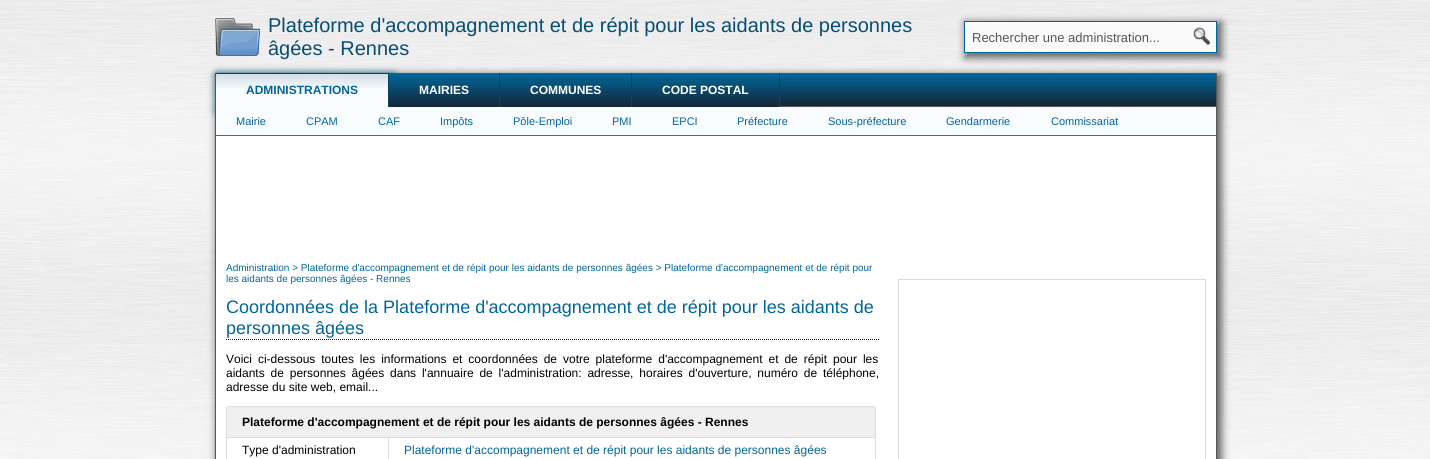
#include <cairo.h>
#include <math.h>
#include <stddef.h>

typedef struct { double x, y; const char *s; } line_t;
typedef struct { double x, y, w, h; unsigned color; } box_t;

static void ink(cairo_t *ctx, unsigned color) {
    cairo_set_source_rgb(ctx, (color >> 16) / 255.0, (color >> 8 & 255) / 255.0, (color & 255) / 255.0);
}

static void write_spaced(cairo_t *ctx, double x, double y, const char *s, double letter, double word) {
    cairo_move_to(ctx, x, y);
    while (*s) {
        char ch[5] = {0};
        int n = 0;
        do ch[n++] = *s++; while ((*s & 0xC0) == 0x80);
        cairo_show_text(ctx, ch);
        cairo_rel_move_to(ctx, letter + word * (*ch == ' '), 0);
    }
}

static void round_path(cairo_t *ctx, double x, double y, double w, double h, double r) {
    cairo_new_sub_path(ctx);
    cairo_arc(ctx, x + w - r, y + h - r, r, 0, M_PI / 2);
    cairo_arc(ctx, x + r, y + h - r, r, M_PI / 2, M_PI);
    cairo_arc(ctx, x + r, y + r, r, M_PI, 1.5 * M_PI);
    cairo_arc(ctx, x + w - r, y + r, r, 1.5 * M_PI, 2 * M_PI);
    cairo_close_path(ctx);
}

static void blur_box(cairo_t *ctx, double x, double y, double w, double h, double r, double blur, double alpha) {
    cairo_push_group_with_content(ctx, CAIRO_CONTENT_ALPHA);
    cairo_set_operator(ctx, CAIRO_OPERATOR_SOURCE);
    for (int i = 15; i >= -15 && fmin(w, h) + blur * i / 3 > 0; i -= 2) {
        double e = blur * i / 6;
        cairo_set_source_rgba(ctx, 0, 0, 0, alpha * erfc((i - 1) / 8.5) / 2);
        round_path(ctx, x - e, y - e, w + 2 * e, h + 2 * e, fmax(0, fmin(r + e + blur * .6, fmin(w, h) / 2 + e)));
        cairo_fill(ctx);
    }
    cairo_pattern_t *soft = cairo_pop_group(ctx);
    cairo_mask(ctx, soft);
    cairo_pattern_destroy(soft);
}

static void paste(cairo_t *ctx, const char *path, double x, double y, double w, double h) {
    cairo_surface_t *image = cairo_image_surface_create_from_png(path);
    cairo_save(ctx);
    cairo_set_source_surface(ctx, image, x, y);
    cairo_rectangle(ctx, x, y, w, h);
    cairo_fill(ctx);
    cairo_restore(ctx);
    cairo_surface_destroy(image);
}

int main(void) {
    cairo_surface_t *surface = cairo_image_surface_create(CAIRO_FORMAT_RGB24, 1430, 459);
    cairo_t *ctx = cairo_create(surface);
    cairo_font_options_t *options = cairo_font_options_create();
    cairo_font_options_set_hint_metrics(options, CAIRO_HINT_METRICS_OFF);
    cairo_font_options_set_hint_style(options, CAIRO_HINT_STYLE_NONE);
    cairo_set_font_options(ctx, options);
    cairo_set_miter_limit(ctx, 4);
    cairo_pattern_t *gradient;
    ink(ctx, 0xFFFFFF);
    cairo_paint(ctx);
    paste(ctx, "media/1.png", 0, 0, 1430, 459);
    paste(ctx, "media/2.png", 215, 18, 45, 38);
    cairo_select_font_face(ctx, "Liberation Sans", CAIRO_FONT_SLANT_NORMAL, CAIRO_FONT_WEIGHT_NORMAL);
    cairo_set_font_size(ctx, 20);
    ink(ctx, 0x084D72);
    cairo_move_to(ctx, 268, 32);
    cairo_show_text(ctx, "Plateforme d'accompagnement et de répit pour les aidants de personnes");
    cairo_move_to(ctx, 268, 55);
    cairo_show_text(ctx, "âgées - Rennes");
    ink(ctx, 0x666666);
    blur_box(ctx, 965, 22, 257, 36, 0, 4, 1);
    ink(ctx, 0xFAFAFA);
    cairo_rectangle(ctx, 964.5, 21.5, 252, 31);
    cairo_fill_preserve(ctx);
    ink(ctx, 0x006699);
    cairo_set_line_width(ctx, 1);
    cairo_stroke(ctx);
    cairo_set_font_size(ctx, 13);
    ink(ctx, 0x555555);
    cairo_move_to(ctx, 972, 42);
    cairo_show_text(ctx, "Rechercher une administration...");
    paste(ctx, "media/3.png", 1193, 27, 18, 19);
    ink(ctx, 0x666666);
    blur_box(ctx, 216, 74, 1006, 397, 0, 4, 1);
    {
        static const box_t items[] = {
            {216, 136, 1000, 323, 0xFFFFFF},
            {1216, 73, 1, 386, 0x555555},
            {215, 73, 1, 386, 0x555555},
        };
        for (size_t i = 0; i < sizeof items / sizeof *items; i++) {
            ink(ctx, items[i].color);
            cairo_rectangle(ctx, items[i].x, items[i].y, items[i].w, items[i].h);
            cairo_fill(ctx);
        }
    }
    paste(ctx, "media/4.png", 780, 73, 436, 34);
    ink(ctx, 0x006699);
    blur_box(ctx, 217, 74, 177, 38, 0, 4, 1);
    ink(ctx, 0xF8FCFF);
    cairo_rectangle(ctx, 216, 88, 172, 19);
    cairo_fill(ctx);
    paste(ctx, "media/5.png", 216, 74, 172, 14);
    ink(ctx, 0x0C4363);
    cairo_rectangle(ctx, 216, 73, 173, 1);
    cairo_fill(ctx);
    cairo_rectangle(ctx, 388, 73, 1, 34);
    cairo_fill(ctx);
    cairo_select_font_face(ctx, "Liberation Sans", CAIRO_FONT_SLANT_NORMAL, CAIRO_FONT_WEIGHT_BOLD);
    cairo_set_font_size(ctx, 12);
    ink(ctx, 0x006699);
    cairo_move_to(ctx, 246, 94);
    cairo_show_text(ctx, "ADMINISTRATIONS");
    gradient = cairo_pattern_create_linear(444, 74, 444, 107);
    cairo_pattern_add_color_stop_rgba(gradient, 0, 0, 0.4, 0.6, 1);
    cairo_pattern_add_color_stop_rgba(gradient, 1, 0.086, 0.149, 0.208, 1);
    cairo_set_source(ctx, gradient);
    cairo_pattern_destroy(gradient);
    cairo_rectangle(ctx, 389, 74, 110, 33);
    cairo_fill(ctx);
    ink(ctx, 0x555555);
    cairo_rectangle(ctx, 389, 73, 391, 1);
    cairo_fill(ctx);
    ink(ctx, 0x0C4363);
    cairo_rectangle(ctx, 499, 73, 1, 34);
    cairo_fill(ctx);
    ink(ctx, 0xFFFFFF);
    cairo_move_to(ctx, 419, 94);
    cairo_show_text(ctx, "MAIRIES");
    gradient = cairo_pattern_create_linear(566, 74, 566, 107);
    cairo_pattern_add_color_stop_rgba(gradient, 0, 0, 0.4, 0.6, 1);
    cairo_pattern_add_color_stop_rgba(gradient, 1, 0.086, 0.149, 0.208, 1);
    cairo_set_source(ctx, gradient);
    cairo_pattern_destroy(gradient);
    cairo_rectangle(ctx, 500, 74, 131, 33);
    cairo_fill(ctx);
    ink(ctx, 0x0C4363);
    cairo_rectangle(ctx, 631, 73, 1, 34);
    cairo_fill(ctx);
    ink(ctx, 0xFFFFFF);
    cairo_move_to(ctx, 530, 94);
    cairo_show_text(ctx, "COMMUNES");
    gradient = cairo_pattern_create_linear(706, 74, 706, 107);
    cairo_pattern_add_color_stop_rgba(gradient, 0, 0, 0.4, 0.6, 1);
    cairo_pattern_add_color_stop_rgba(gradient, 1, 0.086, 0.149, 0.208, 1);
    cairo_set_source(ctx, gradient);
    cairo_pattern_destroy(gradient);
    cairo_rectangle(ctx, 632, 74, 147, 33);
    cairo_fill(ctx);
    ink(ctx, 0x0C4363);
    cairo_rectangle(ctx, 779, 73, 1, 34);
    cairo_fill(ctx);
    ink(ctx, 0xFFFFFF);
    cairo_move_to(ctx, 662, 94);
    cairo_show_text(ctx, "CODE POSTAL");
    ink(ctx, 0xF8FCFF);
    cairo_rectangle(ctx, 216, 107, 1000, 28);
    cairo_fill(ctx);
    ink(ctx, 0x666666);
    cairo_rectangle(ctx, 216, 135, 1000, 1);
    cairo_fill(ctx);
    cairo_select_font_face(ctx, "Liberation Sans", CAIRO_FONT_SLANT_NORMAL, CAIRO_FONT_WEIGHT_NORMAL);
    cairo_set_font_size(ctx, 11);
    ink(ctx, 0x006699);
    {
        static const line_t items[] = {
            {236, 125, "Mairie"},
            {306, 125, "CPAM"},
            {378, 125, "CAF"},
            {440, 125, "Impôts"},
            {513, 125, "Pôle-Emploi"},
            {612, 125, "PMI"},
            {672, 125, "EPCI"},
            {737, 125, "Préfecture"},
            {828, 125, "Sous-préfecture"},
            {946, 125, "Gendarmerie"},
            {1051, 125, "Commissariat"},
        };
        for (size_t i = 0; i < sizeof items / sizeof *items; i++) {
            cairo_move_to(ctx, items[i].x, items[i].y);
            cairo_show_text(ctx, items[i].s);
        }
    }
    cairo_set_font_size(ctx, 10);
    cairo_move_to(ctx, 226, 271);
    cairo_show_text(ctx, "Administration > Plateforme d'accompagnement et de répit pour les aidants de personnes âgées > Plateforme d'accompagnement et de répit pour");
    cairo_move_to(ctx, 226, 282);
    cairo_show_text(ctx, "les aidants de personnes âgées - Rennes");
    cairo_set_font_size(ctx, 18);
    cairo_move_to(ctx, 226, 313);
    cairo_show_text(ctx, "Coordonnées de la Plateforme d'accompagnement et de répit pour les aidants de");
    cairo_move_to(ctx, 226, 334);
    cairo_show_text(ctx, "personnes âgées");
    paste(ctx, "media/6.png", 226, 339, 653, 1);
    cairo_set_font_size(ctx, 12);
    ink(ctx, 0x000000);
    write_spaced(ctx, 226, 363, "Voici ci-dessous toutes les informations et coordonnées de votre plateforme d'accompagnement et de répit pour les", 0, 2.6);
    write_spaced(ctx, 226, 377, "aidants de personnes âgées dans l'annuaire de l'administration: adresse, horaires d'ouverture, numéro de téléphone,", 0, 2.5);
    cairo_move_to(ctx, 226, 391);
    cairo_show_text(ctx, "adresse du site web, email...");
    ink(ctx, 0xF0F0F0);
    cairo_new_path(ctx);
    cairo_move_to(ctx, 229, 406.5);
    cairo_line_to(ctx, 873, 406.5);
    cairo_curve_to(ctx, 874.5, 406.5, 875.5, 407.5, 875.5, 409);
    cairo_line_to(ctx, 875.5, 437.5);
    cairo_line_to(ctx, 226.5, 437.5);
    cairo_line_to(ctx, 226.5, 409);
    cairo_curve_to(ctx, 226.5, 407.5, 227.5, 406.5, 229, 406.5);
    cairo_close_path(ctx);
    cairo_fill_preserve(ctx);
    ink(ctx, 0xDCDCDC);
    cairo_stroke(ctx);
    cairo_select_font_face(ctx, "Liberation Sans", CAIRO_FONT_SLANT_NORMAL, CAIRO_FONT_WEIGHT_BOLD);
    ink(ctx, 0x000000);
    cairo_move_to(ctx, 242, 426);
    cairo_show_text(ctx, "Plateforme d'accompagnement et de répit pour les aidants de personnes âgées - Rennes");
    ink(ctx, 0xDCDCDC);
    cairo_rectangle(ctx, 388, 438, 1, 21);
    cairo_fill(ctx);
    cairo_rectangle(ctx, 226, 438, 1, 21);
    cairo_fill(ctx);
    cairo_select_font_face(ctx, "Liberation Sans", CAIRO_FONT_SLANT_NORMAL, CAIRO_FONT_WEIGHT_NORMAL);
    ink(ctx, 0x000000);
    cairo_move_to(ctx, 242, 454);
    cairo_show_text(ctx, "Type d'administration");
    ink(ctx, 0xDCDCDC);
    cairo_rectangle(ctx, 875, 438, 1, 21);
    cairo_fill(ctx);
    ink(ctx, 0x006699);
    cairo_move_to(ctx, 404, 454);
    cairo_show_text(ctx, "Plateforme d'accompagnement et de répit pour les aidants de personnes âgées");
    {
        static const box_t items[] = {
            {898, 279, 308, 1, 0xDCDCDC},
            {1205, 280, 1, 179, 0xDCDCDC},
            {898, 280, 1, 179, 0xDCDCDC},
        };
        for (size_t i = 0; i < sizeof items / sizeof *items; i++) {
            ink(ctx, items[i].color);
            cairo_rectangle(ctx, items[i].x, items[i].y, items[i].w, items[i].h);
            cairo_fill(ctx);
        }
    }
    cairo_surface_write_to_png(surface, "image.png");
    cairo_font_options_destroy(options);
    cairo_destroy(ctx);
    cairo_surface_destroy(surface);
    return 0;
}
